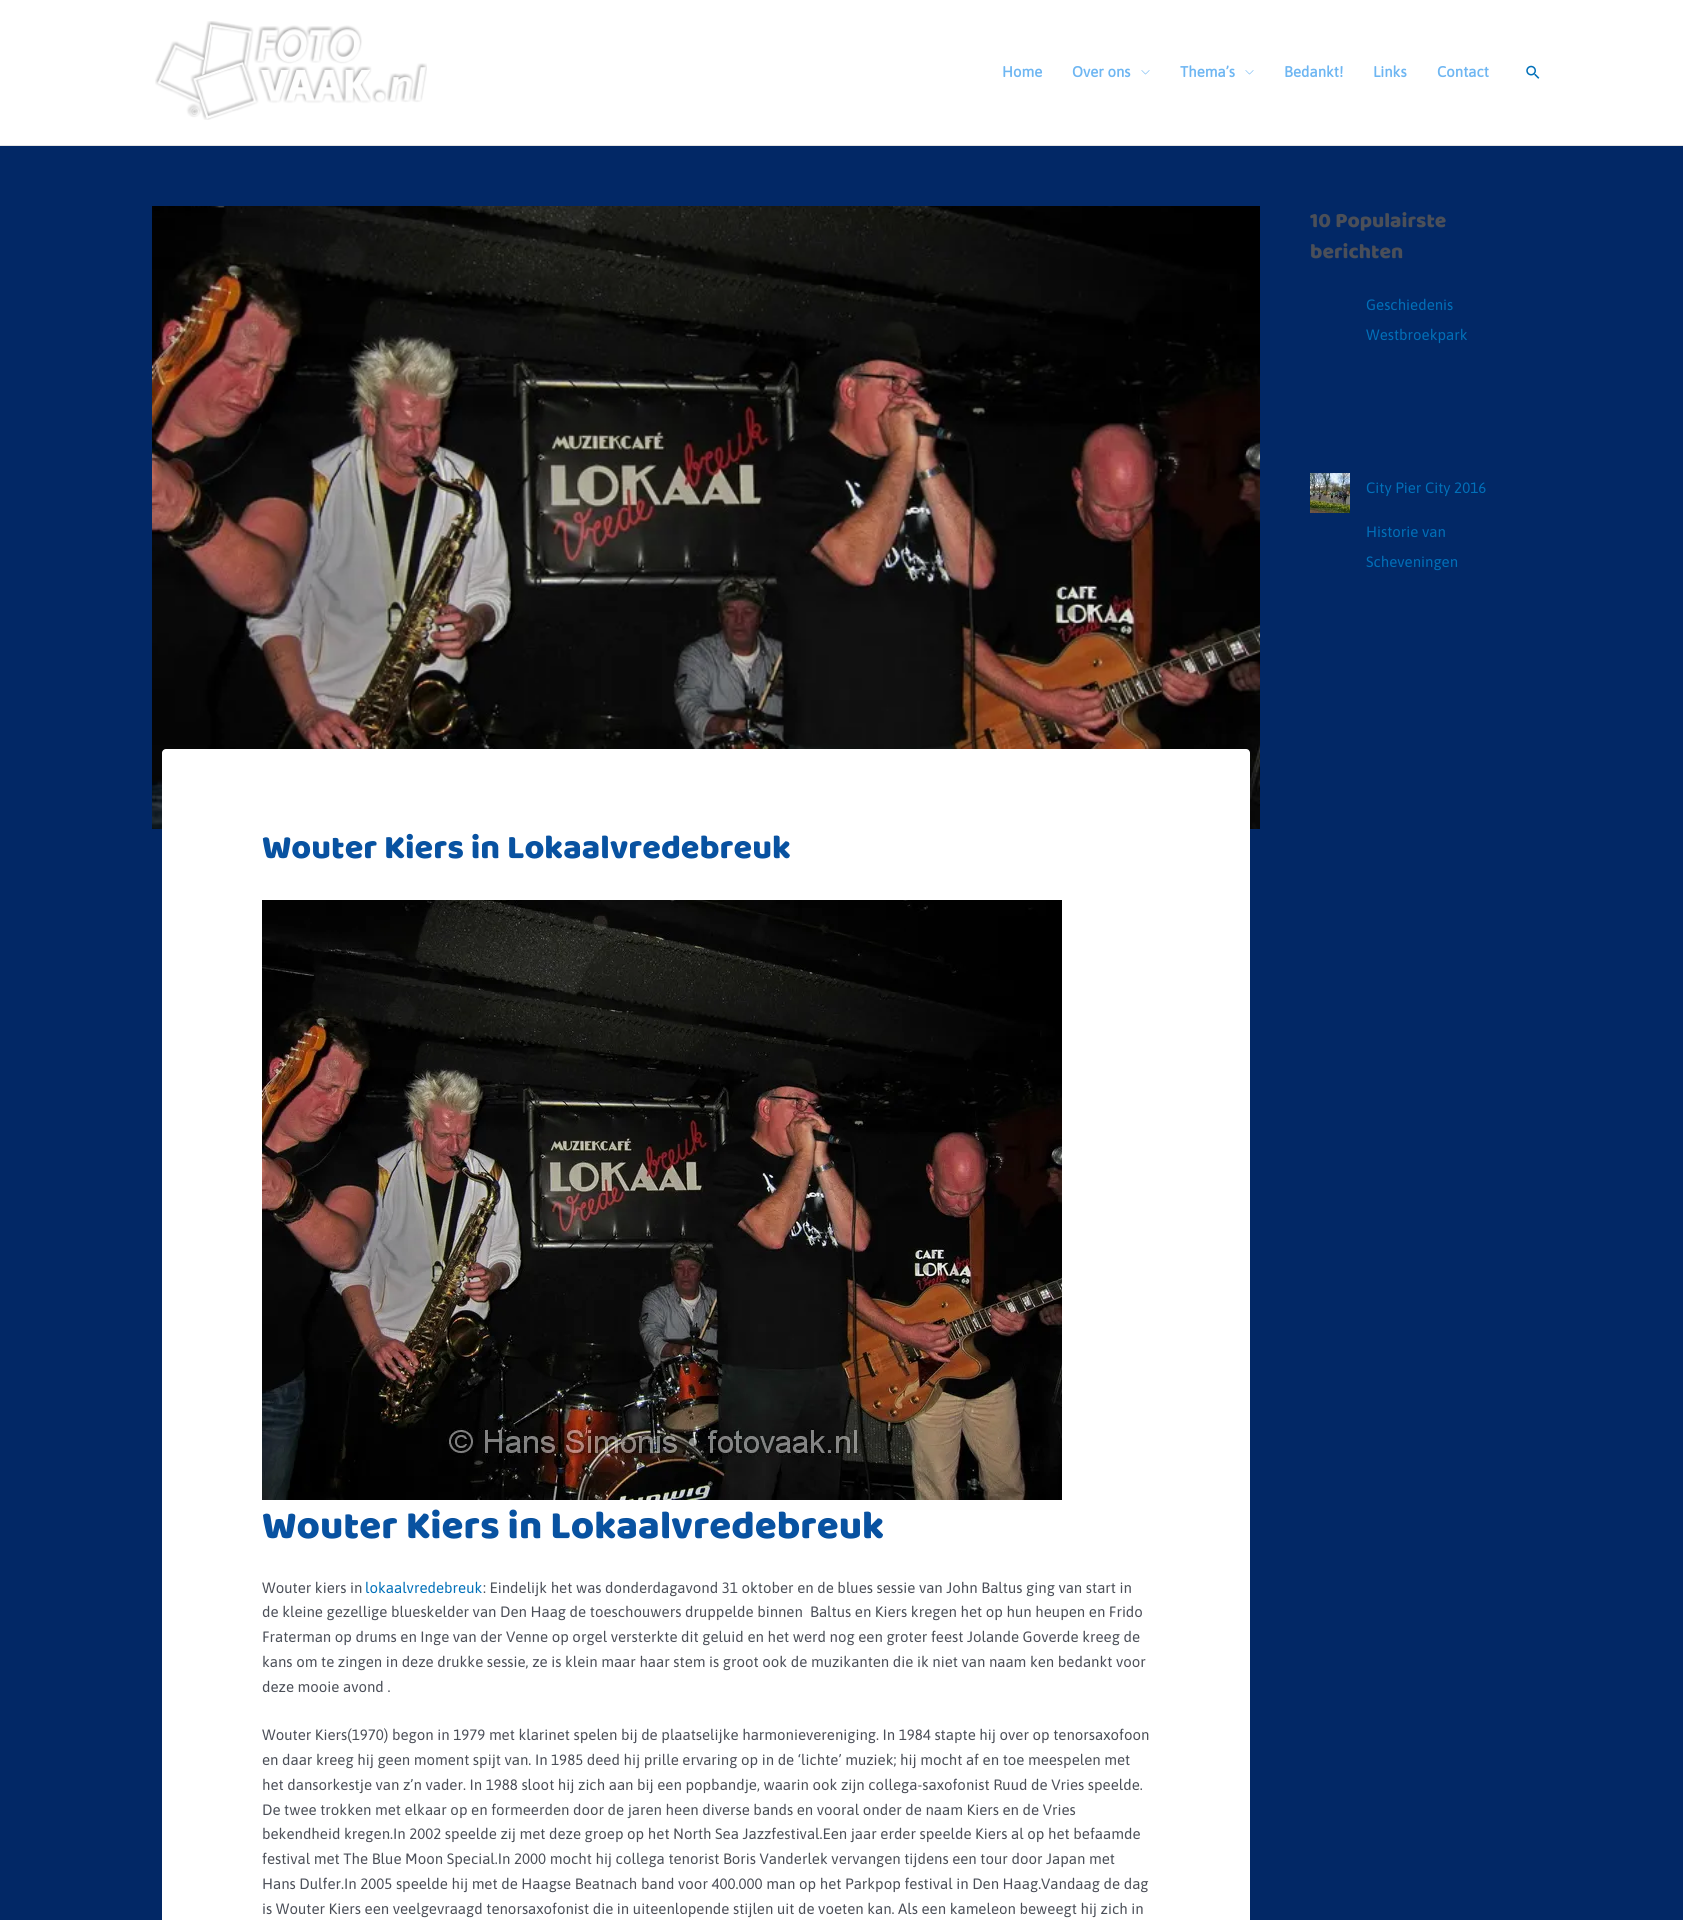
#include <cairo.h>
#include <math.h>
#include <stddef.h>

typedef struct { double x, y; const char *s; } line_t;

static void ink(cairo_t *ctx, unsigned color) {
    cairo_set_source_rgb(ctx, (color >> 16) / 255.0, (color >> 8 & 255) / 255.0, (color & 255) / 255.0);
}

static void round_path(cairo_t *ctx, double x, double y, double w, double h, double r) {
    cairo_new_sub_path(ctx);
    cairo_arc(ctx, x + w - r, y + h - r, r, 0, M_PI / 2);
    cairo_arc(ctx, x + r, y + h - r, r, M_PI / 2, M_PI);
    cairo_arc(ctx, x + r, y + r, r, M_PI, 1.5 * M_PI);
    cairo_arc(ctx, x + w - r, y + r, r, 1.5 * M_PI, 2 * M_PI);
    cairo_close_path(ctx);
}

static void paste(cairo_t *ctx, const char *path, double x, double y, double w, double h) {
    cairo_surface_t *image = cairo_image_surface_create_from_png(path);
    cairo_save(ctx);
    cairo_set_source_surface(ctx, image, x, y);
    cairo_rectangle(ctx, x, y, w, h);
    cairo_fill(ctx);
    cairo_restore(ctx);
    cairo_surface_destroy(image);
}

int main(void) {
    cairo_surface_t *surface = cairo_image_surface_create(CAIRO_FORMAT_RGB24, 1683, 1920);
    cairo_t *ctx = cairo_create(surface);
    cairo_font_options_t *options = cairo_font_options_create();
    cairo_font_options_set_hint_metrics(options, CAIRO_HINT_METRICS_OFF);
    cairo_font_options_set_hint_style(options, CAIRO_HINT_STYLE_NONE);
    cairo_set_font_options(ctx, options);
    cairo_set_miter_limit(ctx, 4);
    ink(ctx, 0x022866);
    cairo_paint(ctx);
    ink(ctx, 0xFFFFFF);
    cairo_rectangle(ctx, 0, 0, 1683, 145);
    cairo_fill(ctx);
    ink(ctx, 0xE5E5E5);
    cairo_rectangle(ctx, 0, 145, 1683, 1);
    cairo_fill(ctx);
    paste(ctx, "media/1.png", 155, 21, 272, 99);
    cairo_select_font_face(ctx, "Asap", CAIRO_FONT_SLANT_NORMAL, CAIRO_FONT_WEIGHT_BOLD);
    cairo_set_font_size(ctx, 15);
    ink(ctx, 0x6EB6F2);
    cairo_move_to(ctx, 1002, 77);
    cairo_show_text(ctx, "Home");
    cairo_move_to(ctx, 1072, 77);
    cairo_show_text(ctx, "Over ons");
    paste(ctx, "media/2.png", 1141, 70, 9, 5);
    cairo_move_to(ctx, 1180, 77);
    cairo_show_text(ctx, "Thema’s");
    paste(ctx, "media/2.png", 1245, 70, 9, 5);
    {
        static const line_t items[] = {
            {1284, 77, "Bedankt!"},
            {1373, 77, "Links"},
            {1437, 77, "Contact"},
        };
        for (size_t i = 0; i < sizeof items / sizeof *items; i++) {
            cairo_move_to(ctx, items[i].x, items[i].y);
            cairo_show_text(ctx, items[i].s);
        }
    }
    paste(ctx, "media/3.png", 1526, 65, 14, 14);
    cairo_select_font_face(ctx, "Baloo", CAIRO_FONT_SLANT_NORMAL, CAIRO_FONT_WEIGHT_NORMAL);
    cairo_set_font_size(ctx, 21);
    ink(ctx, 0x4B4F58);
    cairo_move_to(ctx, 1310, 227);
    cairo_show_text(ctx, "10 Populairste");
    cairo_move_to(ctx, 1310, 258);
    cairo_show_text(ctx, "berichten");
    cairo_select_font_face(ctx, "Asap", CAIRO_FONT_SLANT_NORMAL, CAIRO_FONT_WEIGHT_NORMAL);
    cairo_set_font_size(ctx, 15);
    ink(ctx, 0x0170B9);
    cairo_move_to(ctx, 1366, 310);
    cairo_show_text(ctx, "Geschiedenis");
    cairo_move_to(ctx, 1366, 340);
    cairo_show_text(ctx, "Westbroekpark");
    paste(ctx, "media/4.png", 1310, 473, 40, 40);
    {
        static const line_t items[] = {
            {1366, 493, "City Pier City 2016"},
            {1366, 537, "Historie van"},
            {1366, 567, "Scheveningen"},
        };
        for (size_t i = 0; i < sizeof items / sizeof *items; i++) {
            cairo_move_to(ctx, items[i].x, items[i].y);
            cairo_show_text(ctx, items[i].s);
        }
    }
    paste(ctx, "media/5.png", 152, 206, 1108, 623);
    ink(ctx, 0xFFFFFF);
    round_path(ctx, 162, 749, 1088, 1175, 4);
    cairo_fill(ctx);
    cairo_select_font_face(ctx, "Baloo", CAIRO_FONT_SLANT_NORMAL, CAIRO_FONT_WEIGHT_NORMAL);
    cairo_set_font_size(ctx, 34);
    ink(ctx, 0x0852A1);
    cairo_move_to(ctx, 262, 858);
    cairo_show_text(ctx, "Wouter Kiers in Lokaalvredebreuk");
    paste(ctx, "media/6.png", 262, 900, 800, 600);
    cairo_set_font_size(ctx, 40);
    cairo_move_to(ctx, 262, 1538);
    cairo_show_text(ctx, "Wouter Kiers in Lokaalvredebreuk");
    cairo_select_font_face(ctx, "Asap", CAIRO_FONT_SLANT_NORMAL, CAIRO_FONT_WEIGHT_NORMAL);
    cairo_set_font_size(ctx, 15);
    ink(ctx, 0x4B4F58);
    cairo_move_to(ctx, 262, 1593);
    cairo_show_text(ctx, "Wouter kiers in");
    ink(ctx, 0x0170B9);
    cairo_move_to(ctx, 365, 1593);
    cairo_show_text(ctx, "lokaalvredebreuk");
    ink(ctx, 0x4B4F58);
    {
        static const line_t items[] = {
            {483, 1593, ": Eindelijk het was donderdagavond 31 oktober en de blues sessie van John Baltus ging van start in"},
            {262, 1617, "de kleine gezellige blueskelder van Den Haag de toeschouwers druppelde binnen  Baltus en Kiers kregen het op hun heupen en Frido"},
            {262, 1642, "Fraterman op drums en Inge van der Venne op orgel versterkte dit geluid en het werd nog een groter feest Jolande Goverde kreeg de"},
            {262, 1667, "kans om te zingen in deze drukke sessie, ze is klein maar haar stem is groot ook de muzikanten die ik niet van naam ken bedankt voor"},
            {262, 1692, "deze mooie avond ."},
            {262, 1740, "Wouter Kiers(1970) begon in 1979 met klarinet spelen bij de plaatselijke harmonievereniging. In 1984 stapte hij over op tenorsaxofoon"},
            {262, 1765, "en daar kreeg hij geen moment spijt van. In 1985 deed hij prille ervaring op in de ‘lichte’ muziek; hij mocht af en toe meespelen met"},
            {262, 1790, "het dansorkestje van z’n vader. In 1988 sloot hij zich aan bij een popbandje, waarin ook zijn collega-saxofonist Ruud de Vries speelde."},
            {262, 1815, "De twee trokken met elkaar op en formeerden door de jaren heen diverse bands en vooral onder de naam Kiers en de Vries"},
            {262, 1839, "bekendheid kregen.In 2002 speelde zij met deze groep op het North Sea Jazzfestival.Een jaar erder speelde Kiers al op het befaamde"},
            {262, 1864, "festival met The Blue Moon Special.In 2000 mocht hij collega tenorist Boris Vanderlek vervangen tijdens een tour door Japan met"},
            {262, 1889, "Hans Dulfer.In 2005 speelde hij met de Haagse Beatnach band voor 400.000 man op het Parkpop festival in Den Haag.Vandaag de dag"},
            {262, 1914, "is Wouter Kiers een veelgevraagd tenorsaxofonist die in uiteenlopende stijlen uit de voeten kan. Als een kameleon beweegt hij zich in"},
        };
        for (size_t i = 0; i < sizeof items / sizeof *items; i++) {
            cairo_move_to(ctx, items[i].x, items[i].y);
            cairo_show_text(ctx, items[i].s);
        }
    }
    cairo_surface_write_to_png(surface, "image.png");
    cairo_font_options_destroy(options);
    cairo_destroy(ctx);
    cairo_surface_destroy(surface);
    return 0;
}
